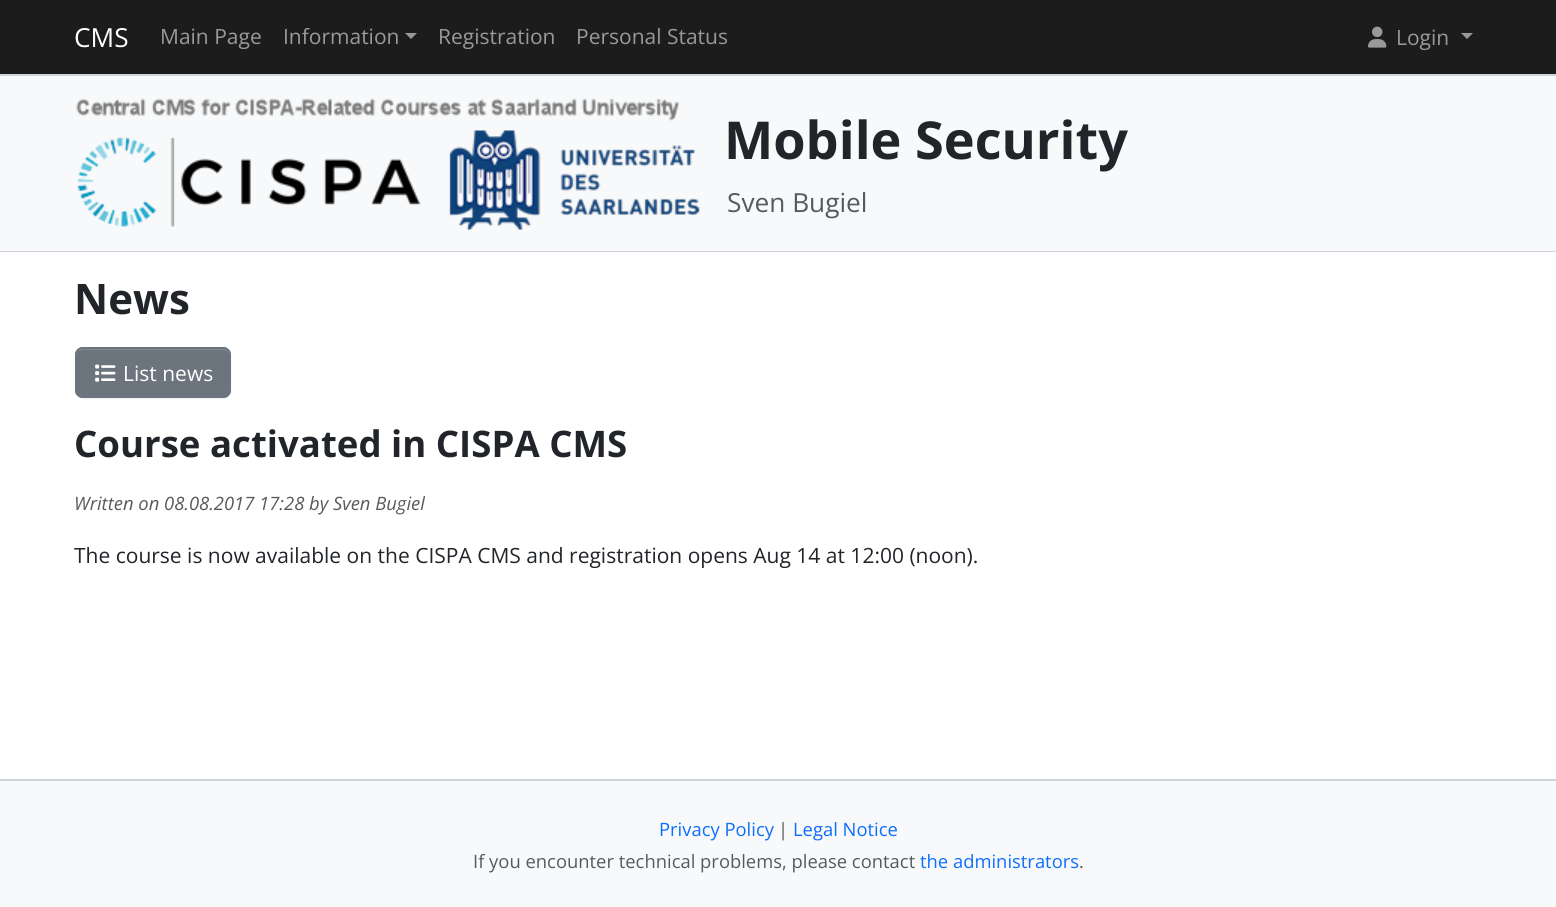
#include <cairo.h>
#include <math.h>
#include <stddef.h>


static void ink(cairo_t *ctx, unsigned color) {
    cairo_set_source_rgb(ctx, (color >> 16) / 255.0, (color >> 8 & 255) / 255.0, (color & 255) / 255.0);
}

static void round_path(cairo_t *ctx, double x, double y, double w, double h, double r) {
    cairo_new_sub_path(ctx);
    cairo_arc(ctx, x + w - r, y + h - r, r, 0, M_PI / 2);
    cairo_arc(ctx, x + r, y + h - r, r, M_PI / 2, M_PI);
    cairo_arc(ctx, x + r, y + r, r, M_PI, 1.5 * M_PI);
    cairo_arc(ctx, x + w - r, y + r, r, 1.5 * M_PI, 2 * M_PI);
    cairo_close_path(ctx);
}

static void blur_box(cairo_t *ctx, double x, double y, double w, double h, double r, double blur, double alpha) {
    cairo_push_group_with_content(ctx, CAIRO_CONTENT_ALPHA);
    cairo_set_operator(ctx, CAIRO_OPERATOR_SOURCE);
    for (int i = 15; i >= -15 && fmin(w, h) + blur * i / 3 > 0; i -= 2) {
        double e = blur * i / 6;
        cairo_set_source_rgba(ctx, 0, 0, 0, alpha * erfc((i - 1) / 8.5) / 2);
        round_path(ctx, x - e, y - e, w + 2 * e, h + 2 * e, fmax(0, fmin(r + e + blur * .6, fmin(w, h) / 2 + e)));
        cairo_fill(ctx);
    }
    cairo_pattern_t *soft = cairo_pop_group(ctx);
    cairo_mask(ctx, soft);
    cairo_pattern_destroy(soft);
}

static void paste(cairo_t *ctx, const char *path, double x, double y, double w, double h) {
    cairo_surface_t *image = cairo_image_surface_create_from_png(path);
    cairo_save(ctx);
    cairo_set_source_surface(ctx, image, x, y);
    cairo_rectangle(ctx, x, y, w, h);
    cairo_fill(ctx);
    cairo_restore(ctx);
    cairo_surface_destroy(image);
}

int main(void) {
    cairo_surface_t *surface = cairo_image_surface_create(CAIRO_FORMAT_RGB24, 1556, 907);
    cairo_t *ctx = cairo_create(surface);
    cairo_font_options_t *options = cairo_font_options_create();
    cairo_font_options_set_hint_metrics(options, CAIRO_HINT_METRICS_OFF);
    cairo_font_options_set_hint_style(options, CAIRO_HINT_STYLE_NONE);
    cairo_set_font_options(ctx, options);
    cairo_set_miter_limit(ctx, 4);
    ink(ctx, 0xF8F9FA);
    cairo_paint(ctx);
    ink(ctx, 0x1C1C1C);
    cairo_rectangle(ctx, 0, 0, 1556, 74);
    cairo_fill(ctx);
    ink(ctx, 0xCED4DA);
    cairo_rectangle(ctx, 0, 74, 1556, 2);
    cairo_fill(ctx);
    cairo_select_font_face(ctx, "Open Sans", CAIRO_FONT_SLANT_NORMAL, CAIRO_FONT_WEIGHT_NORMAL);
    cairo_set_font_size(ctx, 26.25);
    ink(ctx, 0xFFFFFF);
    cairo_move_to(ctx, 74, 47);
    cairo_show_text(ctx, "CMS");
    cairo_set_font_size(ctx, 21);
    ink(ctx, 0x999999);
    cairo_move_to(ctx, 160, 44);
    cairo_show_text(ctx, "Main Page");
    cairo_move_to(ctx, 283, 44);
    cairo_show_text(ctx, "Information");
    cairo_new_path(ctx);
    cairo_move_to(ctx, 405, 33);
    cairo_line_to(ctx, 417, 33);
    cairo_line_to(ctx, 411, 39);
    cairo_close_path(ctx);
    cairo_fill(ctx);
    cairo_move_to(ctx, 438, 44);
    cairo_show_text(ctx, "Registration");
    cairo_move_to(ctx, 576, 44);
    cairo_show_text(ctx, "Personal Status");
    paste(ctx, "media/1.png", 1368, 26, 19, 22);
    cairo_move_to(ctx, 1396, 45);
    cairo_show_text(ctx, "Login");
    cairo_new_path(ctx);
    cairo_move_to(ctx, 1461, 33);
    cairo_line_to(ctx, 1473, 33);
    cairo_line_to(ctx, 1467, 39);
    cairo_close_path(ctx);
    cairo_fill(ctx);
    ink(ctx, 0xCED4DA);
    cairo_rectangle(ctx, 0, 251, 1556, 1);
    cairo_fill(ctx);
    paste(ctx, "media/2.png", 76, 98, 624, 132);
    cairo_select_font_face(ctx, "Open Sans", CAIRO_FONT_SLANT_NORMAL, CAIRO_FONT_WEIGHT_BOLD);
    cairo_set_font_size(ctx, 52.25);
    ink(ctx, 0x212529);
    cairo_move_to(ctx, 724, 159);
    cairo_show_text(ctx, "Mobile Security");
    cairo_select_font_face(ctx, "Open Sans", CAIRO_FONT_SLANT_NORMAL, CAIRO_FONT_WEIGHT_NORMAL);
    cairo_set_font_size(ctx, 26.25);
    ink(ctx, 0x575A5D);
    cairo_move_to(ctx, 727, 212);
    cairo_show_text(ctx, "Sven Bugiel");
    ink(ctx, 0xFFFFFF);
    cairo_rectangle(ctx, 0, 252, 1556, 527);
    cairo_fill(ctx);
    cairo_select_font_face(ctx, "Open Sans", CAIRO_FONT_SLANT_NORMAL, CAIRO_FONT_WEIGHT_BOLD);
    cairo_set_font_size(ctx, 42);
    ink(ctx, 0x212529);
    cairo_move_to(ctx, 74, 314);
    cairo_show_text(ctx, "News");
    ink(ctx, 0x000000);
    blur_box(ctx, 75, 348, 156, 51, 8, 1, 0.07);
    ink(ctx, 0x6C757D);
    round_path(ctx, 75, 347, 156, 51, 8);
    cairo_fill(ctx);
    ink(ctx, 0x828A91);
    cairo_new_path(ctx);
    cairo_move_to(ctx, 83, 350);
    cairo_line_to(ctx, 223, 350);
    cairo_curve_to(ctx, 227, 350, 230, 352, 230, 356);
    cairo_line_to(ctx, 230, 354);
    cairo_curve_to(ctx, 230, 351, 227, 348, 224, 348);
    cairo_line_to(ctx, 83, 348);
    cairo_curve_to(ctx, 80, 348, 78, 350, 77, 352);
    cairo_curve_to(ctx, 79, 351, 81, 350, 83, 350);
    cairo_close_path(ctx);
    cairo_fill(ctx);
    round_path(ctx, 76, 348, 154, 49, 7);
    ink(ctx, 0x6C757D);
    cairo_stroke(ctx);
    paste(ctx, "media/3.png", 95, 364, 21, 18);
    cairo_select_font_face(ctx, "Open Sans", CAIRO_FONT_SLANT_NORMAL, CAIRO_FONT_WEIGHT_NORMAL);
    cairo_set_font_size(ctx, 21);
    ink(ctx, 0xFFFFFF);
    cairo_move_to(ctx, 123, 381);
    cairo_show_text(ctx, "List news");
    cairo_select_font_face(ctx, "Open Sans", CAIRO_FONT_SLANT_NORMAL, CAIRO_FONT_WEIGHT_BOLD);
    cairo_set_font_size(ctx, 36.6);
    ink(ctx, 0x212529);
    cairo_move_to(ctx, 74, 457);
    cairo_show_text(ctx, "Course activated in CISPA CMS");
    cairo_select_font_face(ctx, "Open Sans", CAIRO_FONT_SLANT_ITALIC, CAIRO_FONT_WEIGHT_NORMAL);
    cairo_set_font_size(ctx, 18.4);
    ink(ctx, 0x575A5D);
    cairo_move_to(ctx, 74, 510);
    cairo_show_text(ctx, "Written on 08.08.2017 17:28 by Sven Bugiel");
    cairo_select_font_face(ctx, "Open Sans", CAIRO_FONT_SLANT_NORMAL, CAIRO_FONT_WEIGHT_NORMAL);
    cairo_set_font_size(ctx, 21);
    ink(ctx, 0x212529);
    cairo_move_to(ctx, 74, 563);
    cairo_show_text(ctx, "The course is now available on the CISPA CMS and registration opens Aug 14 at 12:00 (noon).");
    ink(ctx, 0xCED4DA);
    cairo_rectangle(ctx, 0, 779, 1556, 2);
    cairo_fill(ctx);
    cairo_set_font_size(ctx, 18.4);
    ink(ctx, 0x0D6EFD);
    cairo_move_to(ctx, 659, 836);
    cairo_show_text(ctx, "Privacy Policy");
    ink(ctx, 0x575A5D);
    cairo_move_to(ctx, 778, 836);
    cairo_show_text(ctx, "|");
    ink(ctx, 0x0D6EFD);
    cairo_move_to(ctx, 793, 836);
    cairo_show_text(ctx, "Legal Notice");
    ink(ctx, 0x575A5D);
    cairo_move_to(ctx, 473, 868);
    cairo_show_text(ctx, "If you encounter technical problems, please contact");
    ink(ctx, 0x0D6EFD);
    cairo_move_to(ctx, 920, 868);
    cairo_show_text(ctx, "the administrators");
    ink(ctx, 0x575A5D);
    cairo_move_to(ctx, 1079, 868);
    cairo_show_text(ctx, ".");
    cairo_surface_write_to_png(surface, "image.png");
    cairo_font_options_destroy(options);
    cairo_destroy(ctx);
    cairo_surface_destroy(surface);
    return 0;
}
